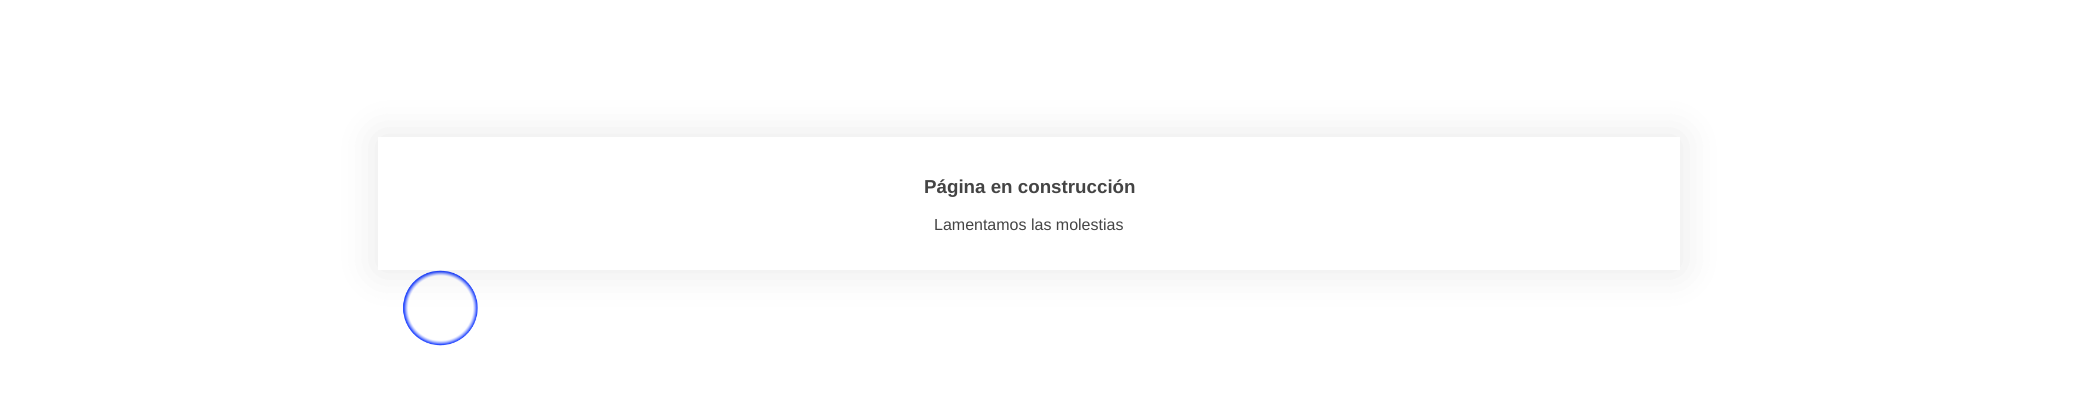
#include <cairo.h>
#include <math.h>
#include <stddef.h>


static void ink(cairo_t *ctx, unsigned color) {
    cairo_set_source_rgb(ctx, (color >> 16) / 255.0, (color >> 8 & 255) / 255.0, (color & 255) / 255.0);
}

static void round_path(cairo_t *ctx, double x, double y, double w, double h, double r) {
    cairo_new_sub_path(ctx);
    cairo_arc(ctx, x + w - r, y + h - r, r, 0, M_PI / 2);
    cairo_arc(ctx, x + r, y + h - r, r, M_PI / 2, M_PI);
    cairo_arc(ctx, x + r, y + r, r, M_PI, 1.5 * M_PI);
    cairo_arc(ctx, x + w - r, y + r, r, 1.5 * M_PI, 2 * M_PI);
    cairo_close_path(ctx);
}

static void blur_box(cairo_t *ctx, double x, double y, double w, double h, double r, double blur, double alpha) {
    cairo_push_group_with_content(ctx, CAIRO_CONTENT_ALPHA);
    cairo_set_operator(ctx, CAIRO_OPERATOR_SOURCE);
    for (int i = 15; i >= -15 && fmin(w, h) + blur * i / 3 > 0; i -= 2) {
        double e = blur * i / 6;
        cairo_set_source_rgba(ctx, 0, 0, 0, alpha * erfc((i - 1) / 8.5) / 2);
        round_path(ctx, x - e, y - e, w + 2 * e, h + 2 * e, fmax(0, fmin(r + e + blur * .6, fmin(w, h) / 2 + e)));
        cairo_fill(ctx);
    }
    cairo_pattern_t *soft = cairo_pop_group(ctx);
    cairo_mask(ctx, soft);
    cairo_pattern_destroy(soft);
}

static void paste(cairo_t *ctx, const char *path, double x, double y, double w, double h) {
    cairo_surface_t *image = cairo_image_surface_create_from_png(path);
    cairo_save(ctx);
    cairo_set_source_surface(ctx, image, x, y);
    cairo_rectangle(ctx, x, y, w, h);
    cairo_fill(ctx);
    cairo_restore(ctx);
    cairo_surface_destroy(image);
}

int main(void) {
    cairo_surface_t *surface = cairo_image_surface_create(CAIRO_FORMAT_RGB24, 2100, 407);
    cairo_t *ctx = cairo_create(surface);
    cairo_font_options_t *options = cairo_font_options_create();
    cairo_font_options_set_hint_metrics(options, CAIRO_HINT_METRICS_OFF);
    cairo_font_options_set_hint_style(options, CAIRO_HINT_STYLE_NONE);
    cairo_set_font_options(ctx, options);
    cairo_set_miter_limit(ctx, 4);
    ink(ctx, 0xFFFFFF);
    cairo_paint(ctx);
    paste(ctx, "media/1.png", 403, 270, 75, 76);
    cairo_save(ctx);
    cairo_set_fill_rule(ctx, CAIRO_FILL_RULE_EVEN_ODD);
    cairo_new_path(ctx);
    cairo_move_to(ctx, 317, 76);
    cairo_line_to(ctx, 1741, 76);
    cairo_line_to(ctx, 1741, 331);
    cairo_line_to(ctx, 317, 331);
    cairo_close_path(ctx);
    cairo_move_to(ctx, 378, 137);
    cairo_line_to(ctx, 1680, 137);
    cairo_line_to(ctx, 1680, 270);
    cairo_line_to(ctx, 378, 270);
    cairo_close_path(ctx);
    cairo_clip(ctx);
    ink(ctx, 0x000000);
    blur_box(ctx, 378, 137, 1302, 133, 0, 20, 0.1);
    cairo_restore(ctx);
    cairo_select_font_face(ctx, "Liberation Sans", CAIRO_FONT_SLANT_NORMAL, CAIRO_FONT_WEIGHT_BOLD);
    cairo_set_font_size(ctx, 18.75);
    ink(ctx, 0x444444);
    cairo_move_to(ctx, 924, 193);
    cairo_show_text(ctx, "Página en construcción");
    cairo_select_font_face(ctx, "Liberation Sans", CAIRO_FONT_SLANT_NORMAL, CAIRO_FONT_WEIGHT_NORMAL);
    cairo_set_font_size(ctx, 16);
    cairo_move_to(ctx, 934, 230);
    cairo_show_text(ctx, "Lamentamos las molestias");
    cairo_surface_write_to_png(surface, "image.png");
    cairo_font_options_destroy(options);
    cairo_destroy(ctx);
    cairo_surface_destroy(surface);
    return 0;
}
